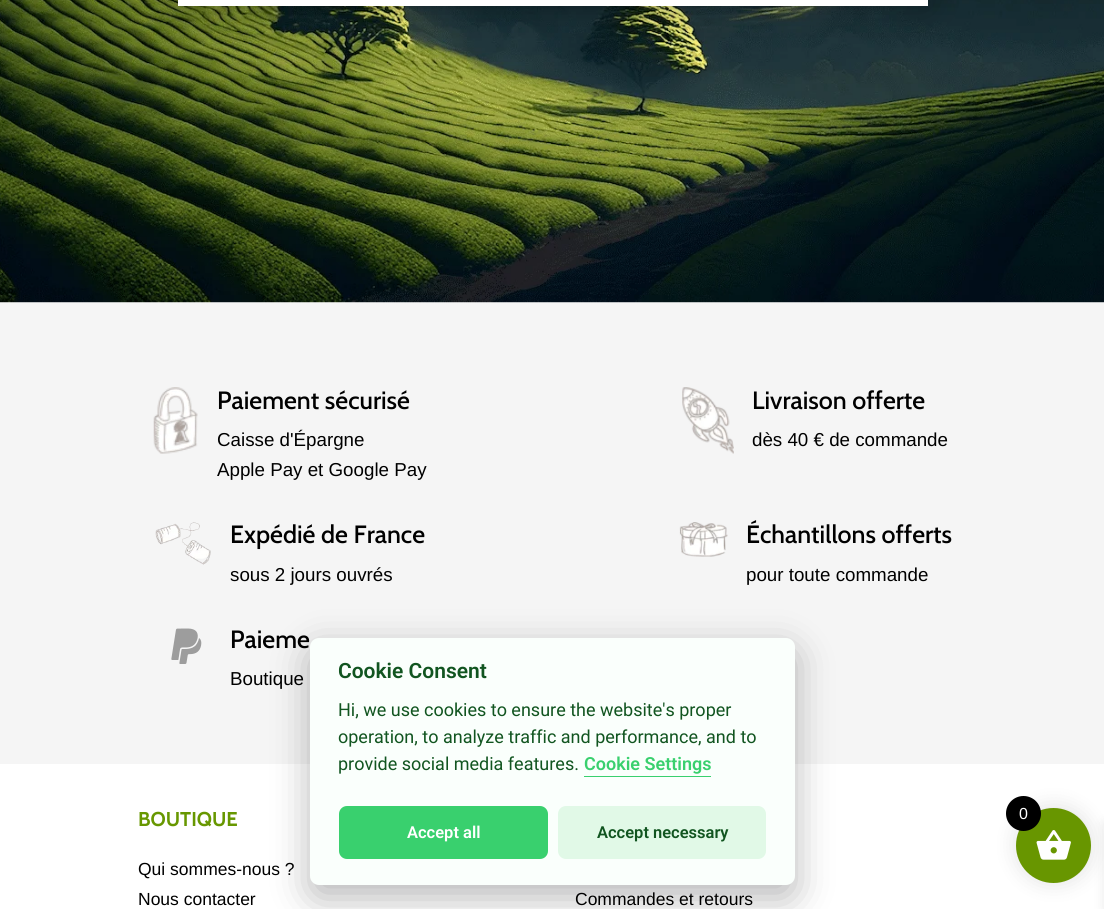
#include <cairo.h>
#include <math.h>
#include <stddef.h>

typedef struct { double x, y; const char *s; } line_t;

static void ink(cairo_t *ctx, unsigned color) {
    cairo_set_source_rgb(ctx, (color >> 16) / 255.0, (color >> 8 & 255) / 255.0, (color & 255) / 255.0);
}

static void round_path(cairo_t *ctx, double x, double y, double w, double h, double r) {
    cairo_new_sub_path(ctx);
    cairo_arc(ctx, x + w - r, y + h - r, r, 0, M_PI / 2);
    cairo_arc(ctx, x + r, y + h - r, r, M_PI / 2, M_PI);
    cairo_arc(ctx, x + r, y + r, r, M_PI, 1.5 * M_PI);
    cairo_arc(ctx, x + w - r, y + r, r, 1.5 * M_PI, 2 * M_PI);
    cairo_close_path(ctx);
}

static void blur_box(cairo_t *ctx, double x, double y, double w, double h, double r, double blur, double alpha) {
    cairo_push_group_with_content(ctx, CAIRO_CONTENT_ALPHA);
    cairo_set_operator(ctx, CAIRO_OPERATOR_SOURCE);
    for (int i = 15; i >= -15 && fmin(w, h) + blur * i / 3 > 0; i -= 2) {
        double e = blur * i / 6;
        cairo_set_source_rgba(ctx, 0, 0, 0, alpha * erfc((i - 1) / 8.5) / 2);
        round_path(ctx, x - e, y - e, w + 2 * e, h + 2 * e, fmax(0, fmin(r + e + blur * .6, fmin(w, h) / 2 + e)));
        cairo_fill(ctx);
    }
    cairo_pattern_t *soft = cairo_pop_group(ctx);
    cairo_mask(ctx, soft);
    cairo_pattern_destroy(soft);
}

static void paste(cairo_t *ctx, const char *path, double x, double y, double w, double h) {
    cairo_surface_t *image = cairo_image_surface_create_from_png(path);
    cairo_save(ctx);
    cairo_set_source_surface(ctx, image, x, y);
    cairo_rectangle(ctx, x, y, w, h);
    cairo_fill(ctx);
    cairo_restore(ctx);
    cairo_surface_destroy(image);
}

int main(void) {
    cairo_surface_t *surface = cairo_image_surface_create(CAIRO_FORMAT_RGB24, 1104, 909);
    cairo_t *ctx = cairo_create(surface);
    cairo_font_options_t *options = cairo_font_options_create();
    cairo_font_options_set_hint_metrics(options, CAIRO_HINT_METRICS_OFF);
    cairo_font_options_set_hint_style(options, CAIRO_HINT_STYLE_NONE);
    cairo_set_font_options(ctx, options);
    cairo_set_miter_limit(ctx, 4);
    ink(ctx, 0xFFFFFF);
    cairo_paint(ctx);
    paste(ctx, "media/1.png", 0, 0, 1104, 303);
    ink(ctx, 0x000000);
    blur_box(ctx, 178, -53, 750, 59, 0, 17.5, 0.3);
    ink(ctx, 0xFFFFFF);
    cairo_rectangle(ctx, 178, 0, 750, 6);
    cairo_fill(ctx);
    ink(ctx, 0xF5F5F5);
    cairo_rectangle(ctx, 0, 303, 1104, 461);
    cairo_fill(ctx);
    paste(ctx, "media/2.png", 153, 387, 45, 67);
    cairo_select_font_face(ctx, "Cabin Medium", CAIRO_FONT_SLANT_NORMAL, CAIRO_FONT_WEIGHT_NORMAL);
    cairo_set_font_size(ctx, 25);
    ink(ctx, 0x000000);
    cairo_move_to(ctx, 217, 409);
    cairo_show_text(ctx, "Paiement sécurisé");
    cairo_select_font_face(ctx, "Liberation Sans", CAIRO_FONT_SLANT_NORMAL, CAIRO_FONT_WEIGHT_NORMAL);
    cairo_set_font_size(ctx, 18.75);
    cairo_move_to(ctx, 217, 446);
    cairo_show_text(ctx, "Caisse d'Épargne");
    cairo_move_to(ctx, 217, 476);
    cairo_show_text(ctx, "Apple Pay et Google Pay");
    paste(ctx, "media/3.png", 682, 387, 52, 67);
    cairo_select_font_face(ctx, "Cabin Medium", CAIRO_FONT_SLANT_NORMAL, CAIRO_FONT_WEIGHT_NORMAL);
    cairo_set_font_size(ctx, 25);
    cairo_move_to(ctx, 752, 409);
    cairo_show_text(ctx, "Livraison offerte");
    cairo_select_font_face(ctx, "Liberation Sans", CAIRO_FONT_SLANT_NORMAL, CAIRO_FONT_WEIGHT_NORMAL);
    cairo_set_font_size(ctx, 18.75);
    cairo_move_to(ctx, 752, 446);
    cairo_show_text(ctx, "dès 40 € de commande");
    paste(ctx, "media/4.png", 155, 522, 56, 43);
    cairo_select_font_face(ctx, "Cabin Medium", CAIRO_FONT_SLANT_NORMAL, CAIRO_FONT_WEIGHT_NORMAL);
    cairo_set_font_size(ctx, 25);
    cairo_move_to(ctx, 230, 543);
    cairo_show_text(ctx, "Expédié de France");
    cairo_select_font_face(ctx, "Liberation Sans", CAIRO_FONT_SLANT_NORMAL, CAIRO_FONT_WEIGHT_NORMAL);
    cairo_set_font_size(ctx, 18.75);
    cairo_move_to(ctx, 230, 581);
    cairo_show_text(ctx, "sous 2 jours ouvrés");
    paste(ctx, "media/5.png", 679, 522, 49, 35);
    cairo_select_font_face(ctx, "Cabin Medium", CAIRO_FONT_SLANT_NORMAL, CAIRO_FONT_WEIGHT_NORMAL);
    cairo_set_font_size(ctx, 25);
    cairo_move_to(ctx, 746, 543);
    cairo_show_text(ctx, "Échantillons offerts");
    cairo_select_font_face(ctx, "Liberation Sans", CAIRO_FONT_SLANT_NORMAL, CAIRO_FONT_WEIGHT_NORMAL);
    cairo_set_font_size(ctx, 18.75);
    cairo_move_to(ctx, 746, 581);
    cairo_show_text(ctx, "pour toute commande");
    paste(ctx, "media/6.png", 171, 628, 31, 36);
    cairo_select_font_face(ctx, "Cabin Medium", CAIRO_FONT_SLANT_NORMAL, CAIRO_FONT_WEIGHT_NORMAL);
    cairo_set_font_size(ctx, 25);
    cairo_move_to(ctx, 230, 648);
    cairo_show_text(ctx, "Paieme");
    cairo_select_font_face(ctx, "Liberation Sans", CAIRO_FONT_SLANT_NORMAL, CAIRO_FONT_WEIGHT_NORMAL);
    cairo_set_font_size(ctx, 18.75);
    cairo_move_to(ctx, 230, 685);
    cairo_show_text(ctx, "Boutique");
    cairo_select_font_face(ctx, "Cabin", CAIRO_FONT_SLANT_NORMAL, CAIRO_FONT_WEIGHT_BOLD);
    cairo_set_font_size(ctx, 20);
    ink(ctx, 0x679700);
    cairo_move_to(ctx, 138, 826);
    cairo_show_text(ctx, "BOUTIQUE");
    cairo_select_font_face(ctx, "Liberation Sans", CAIRO_FONT_SLANT_NORMAL, CAIRO_FONT_WEIGHT_NORMAL);
    cairo_set_font_size(ctx, 17.5);
    ink(ctx, 0x000000);
    {
        static const line_t items[] = {
            {138, 875, "Qui sommes-nous ?"},
            {138, 905, "Nous contacter"},
            {575, 905, "Commandes et retours"},
        };
        for (size_t i = 0; i < sizeof items / sizeof *items; i++) {
            cairo_move_to(ctx, items[i].x, items[i].y);
            cairo_show_text(ctx, items[i].s);
        }
    }
    ink(ctx, 0x020203);
    blur_box(ctx, 310, 650, 485, 248, 9, 19, 0.28);
    ink(ctx, 0xFAFFFC);
    round_path(ctx, 310, 638, 485, 247, 9);
    cairo_fill(ctx);
    cairo_select_font_face(ctx, "Roboto SemiBold", CAIRO_FONT_SLANT_NORMAL, CAIRO_FONT_WEIGHT_NORMAL);
    cairo_set_font_size(ctx, 21);
    ink(ctx, 0x115520);
    cairo_move_to(ctx, 338, 678);
    cairo_show_text(ctx, "Cookie Consent");
    cairo_select_font_face(ctx, "Roboto", CAIRO_FONT_SLANT_NORMAL, CAIRO_FONT_WEIGHT_NORMAL);
    cairo_set_font_size(ctx, 18);
    {
        static const line_t items[] = {
            {338, 716, "Hi, we use cookies to ensure the website's proper"},
            {338, 743, "operation, to analyze traffic and performance, and to"},
            {338, 770, "provide social media features."},
        };
        for (size_t i = 0; i < sizeof items / sizeof *items; i++) {
            cairo_move_to(ctx, items[i].x, items[i].y);
            cairo_show_text(ctx, items[i].s);
        }
    }
    cairo_select_font_face(ctx, "Roboto SemiBold", CAIRO_FONT_SLANT_NORMAL, CAIRO_FONT_WEIGHT_NORMAL);
    ink(ctx, 0x39D06E);
    cairo_move_to(ctx, 584, 770);
    cairo_show_text(ctx, "Cookie Settings");
    cairo_rectangle(ctx, 584, 776, 127, 1);
    cairo_fill(ctx);
    round_path(ctx, 339, 806, 209, 53, 8);
    cairo_fill(ctx);
    cairo_set_font_size(ctx, 16.5);
    ink(ctx, 0xFFFFFF);
    cairo_move_to(ctx, 407, 838);
    cairo_show_text(ctx, "Accept all");
    ink(ctx, 0xE1F9E7);
    round_path(ctx, 558, 806, 208, 53, 8);
    cairo_fill(ctx);
    ink(ctx, 0x115520);
    cairo_move_to(ctx, 597, 838);
    cairo_show_text(ctx, "Accept necessary");
    ink(ctx, 0x000000);
    blur_box(ctx, 1014, 805, 80, 80, 40, 9.5, 0.1);
    blur_box(ctx, 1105, 824, 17, 85, 0, 6, 0.1);
    ink(ctx, 0x689600);
    cairo_arc(ctx, 1053.5, 845.5, 37.5, 0, 2 * M_PI);
    cairo_fill(ctx);
    paste(ctx, "media/7.png", 1036, 830, 35, 30);
    ink(ctx, 0x000000);
    cairo_arc(ctx, 1023.5, 813.5, 17.5, 0, 2 * M_PI);
    cairo_fill(ctx);
    cairo_select_font_face(ctx, "Liberation Sans", CAIRO_FONT_SLANT_NORMAL, CAIRO_FONT_WEIGHT_NORMAL);
    cairo_set_font_size(ctx, 16);
    ink(ctx, 0xFFFFFF);
    cairo_move_to(ctx, 1019, 819);
    cairo_show_text(ctx, "0");
    cairo_surface_write_to_png(surface, "image.png");
    cairo_font_options_destroy(options);
    cairo_destroy(ctx);
    cairo_surface_destroy(surface);
    return 0;
}
